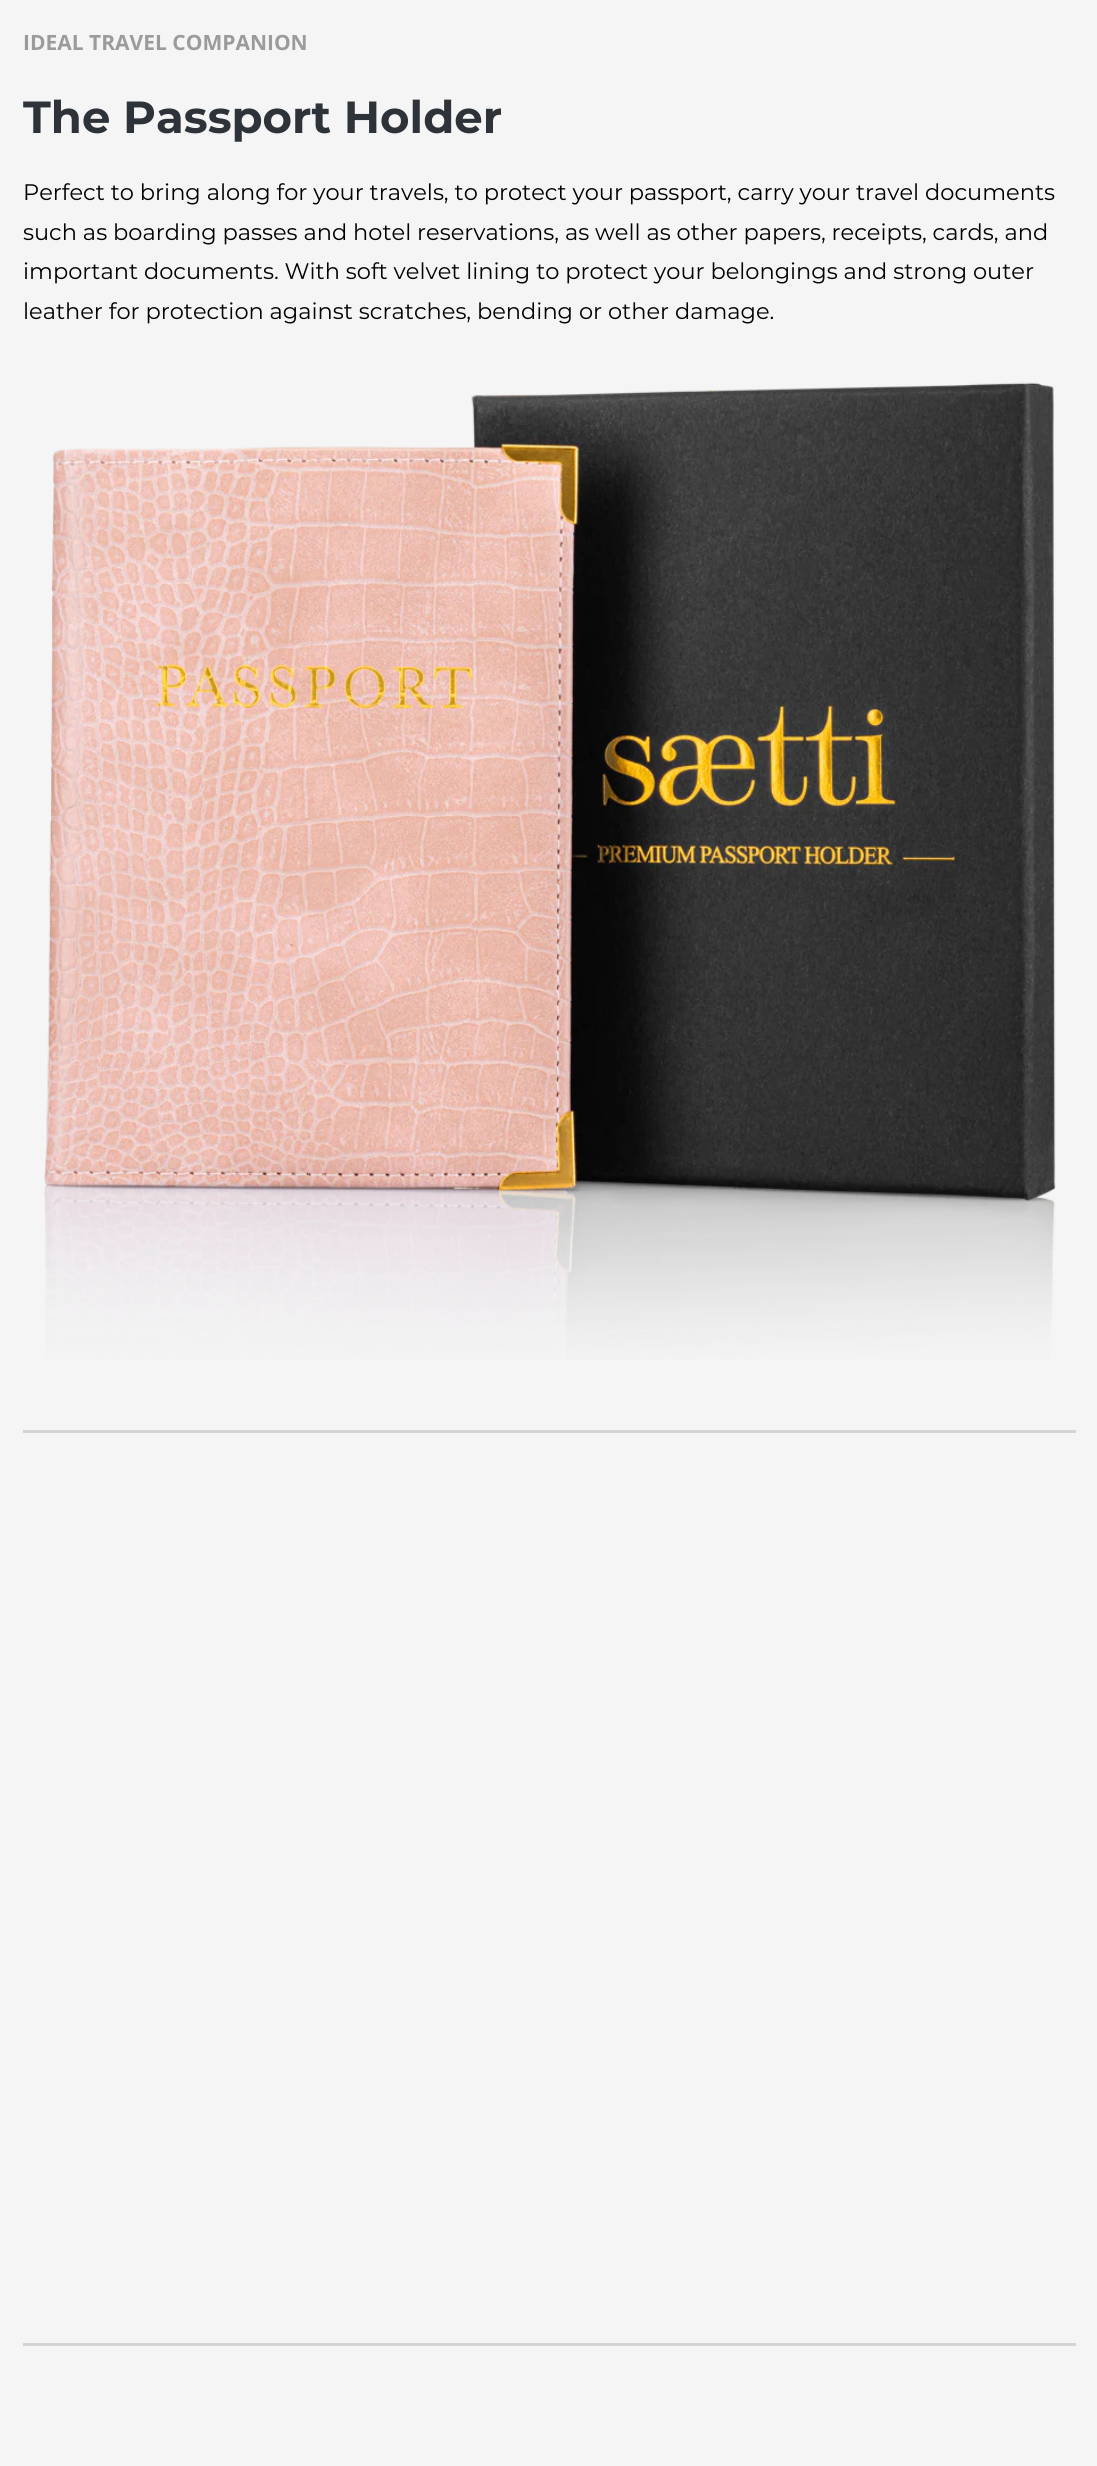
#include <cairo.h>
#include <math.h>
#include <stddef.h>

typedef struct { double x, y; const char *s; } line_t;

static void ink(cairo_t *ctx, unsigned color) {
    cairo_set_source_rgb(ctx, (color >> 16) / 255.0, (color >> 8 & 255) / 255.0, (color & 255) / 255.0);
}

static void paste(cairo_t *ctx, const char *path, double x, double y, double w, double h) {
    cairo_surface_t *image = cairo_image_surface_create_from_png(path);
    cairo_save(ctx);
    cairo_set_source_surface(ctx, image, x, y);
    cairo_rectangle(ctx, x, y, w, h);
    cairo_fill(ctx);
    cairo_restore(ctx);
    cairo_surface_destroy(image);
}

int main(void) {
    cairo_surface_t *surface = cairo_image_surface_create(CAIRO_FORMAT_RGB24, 1097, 2466);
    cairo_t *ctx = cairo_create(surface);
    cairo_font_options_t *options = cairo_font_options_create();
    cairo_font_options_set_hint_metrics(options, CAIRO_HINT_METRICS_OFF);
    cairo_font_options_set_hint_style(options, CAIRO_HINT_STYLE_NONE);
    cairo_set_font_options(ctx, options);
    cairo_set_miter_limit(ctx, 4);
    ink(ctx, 0xF5F5F5);
    cairo_paint(ctx);
    cairo_select_font_face(ctx, "Open Sans", CAIRO_FONT_SLANT_NORMAL, CAIRO_FONT_WEIGHT_BOLD);
    cairo_set_font_size(ctx, 21);
    ink(ctx, 0x9B9B9B);
    cairo_move_to(ctx, 23, 50);
    cairo_show_text(ctx, "IDEAL TRAVEL COMPANION");
    cairo_select_font_face(ctx, "Montserrat", CAIRO_FONT_SLANT_NORMAL, CAIRO_FONT_WEIGHT_BOLD);
    cairo_set_font_size(ctx, 45);
    ink(ctx, 0x2D3339);
    cairo_move_to(ctx, 23, 133);
    cairo_show_text(ctx, "The Passport Holder");
    cairo_select_font_face(ctx, "Montserrat", CAIRO_FONT_SLANT_NORMAL, CAIRO_FONT_WEIGHT_NORMAL);
    cairo_set_font_size(ctx, 22.5);
    ink(ctx, 0x000000);
    {
        static const line_t items[] = {
            {23, 200, "Perfect to bring along for your travels, to protect your passport, carry your travel documents"},
            {23, 240, "such as boarding passes and hotel reservations, as well as other papers, receipts, cards, and"},
            {23, 279, "important documents. With soft velvet lining to protect your belongings and strong outer"},
            {23, 319, "leather for protection against scratches, bending or other damage."},
        };
        for (size_t i = 0; i < sizeof items / sizeof *items; i++) {
            cairo_move_to(ctx, items[i].x, items[i].y);
            cairo_show_text(ctx, items[i].s);
        }
    }
    paste(ctx, "media/1.png", 44, 382, 1012, 978);
    ink(ctx, 0xD3D4D8);
    cairo_rectangle(ctx, 23, 1430, 1053, 3);
    cairo_fill(ctx);
    cairo_rectangle(ctx, 23, 2343, 1053, 3);
    cairo_fill(ctx);
    cairo_surface_write_to_png(surface, "image.png");
    cairo_font_options_destroy(options);
    cairo_destroy(ctx);
    cairo_surface_destroy(surface);
    return 0;
}
